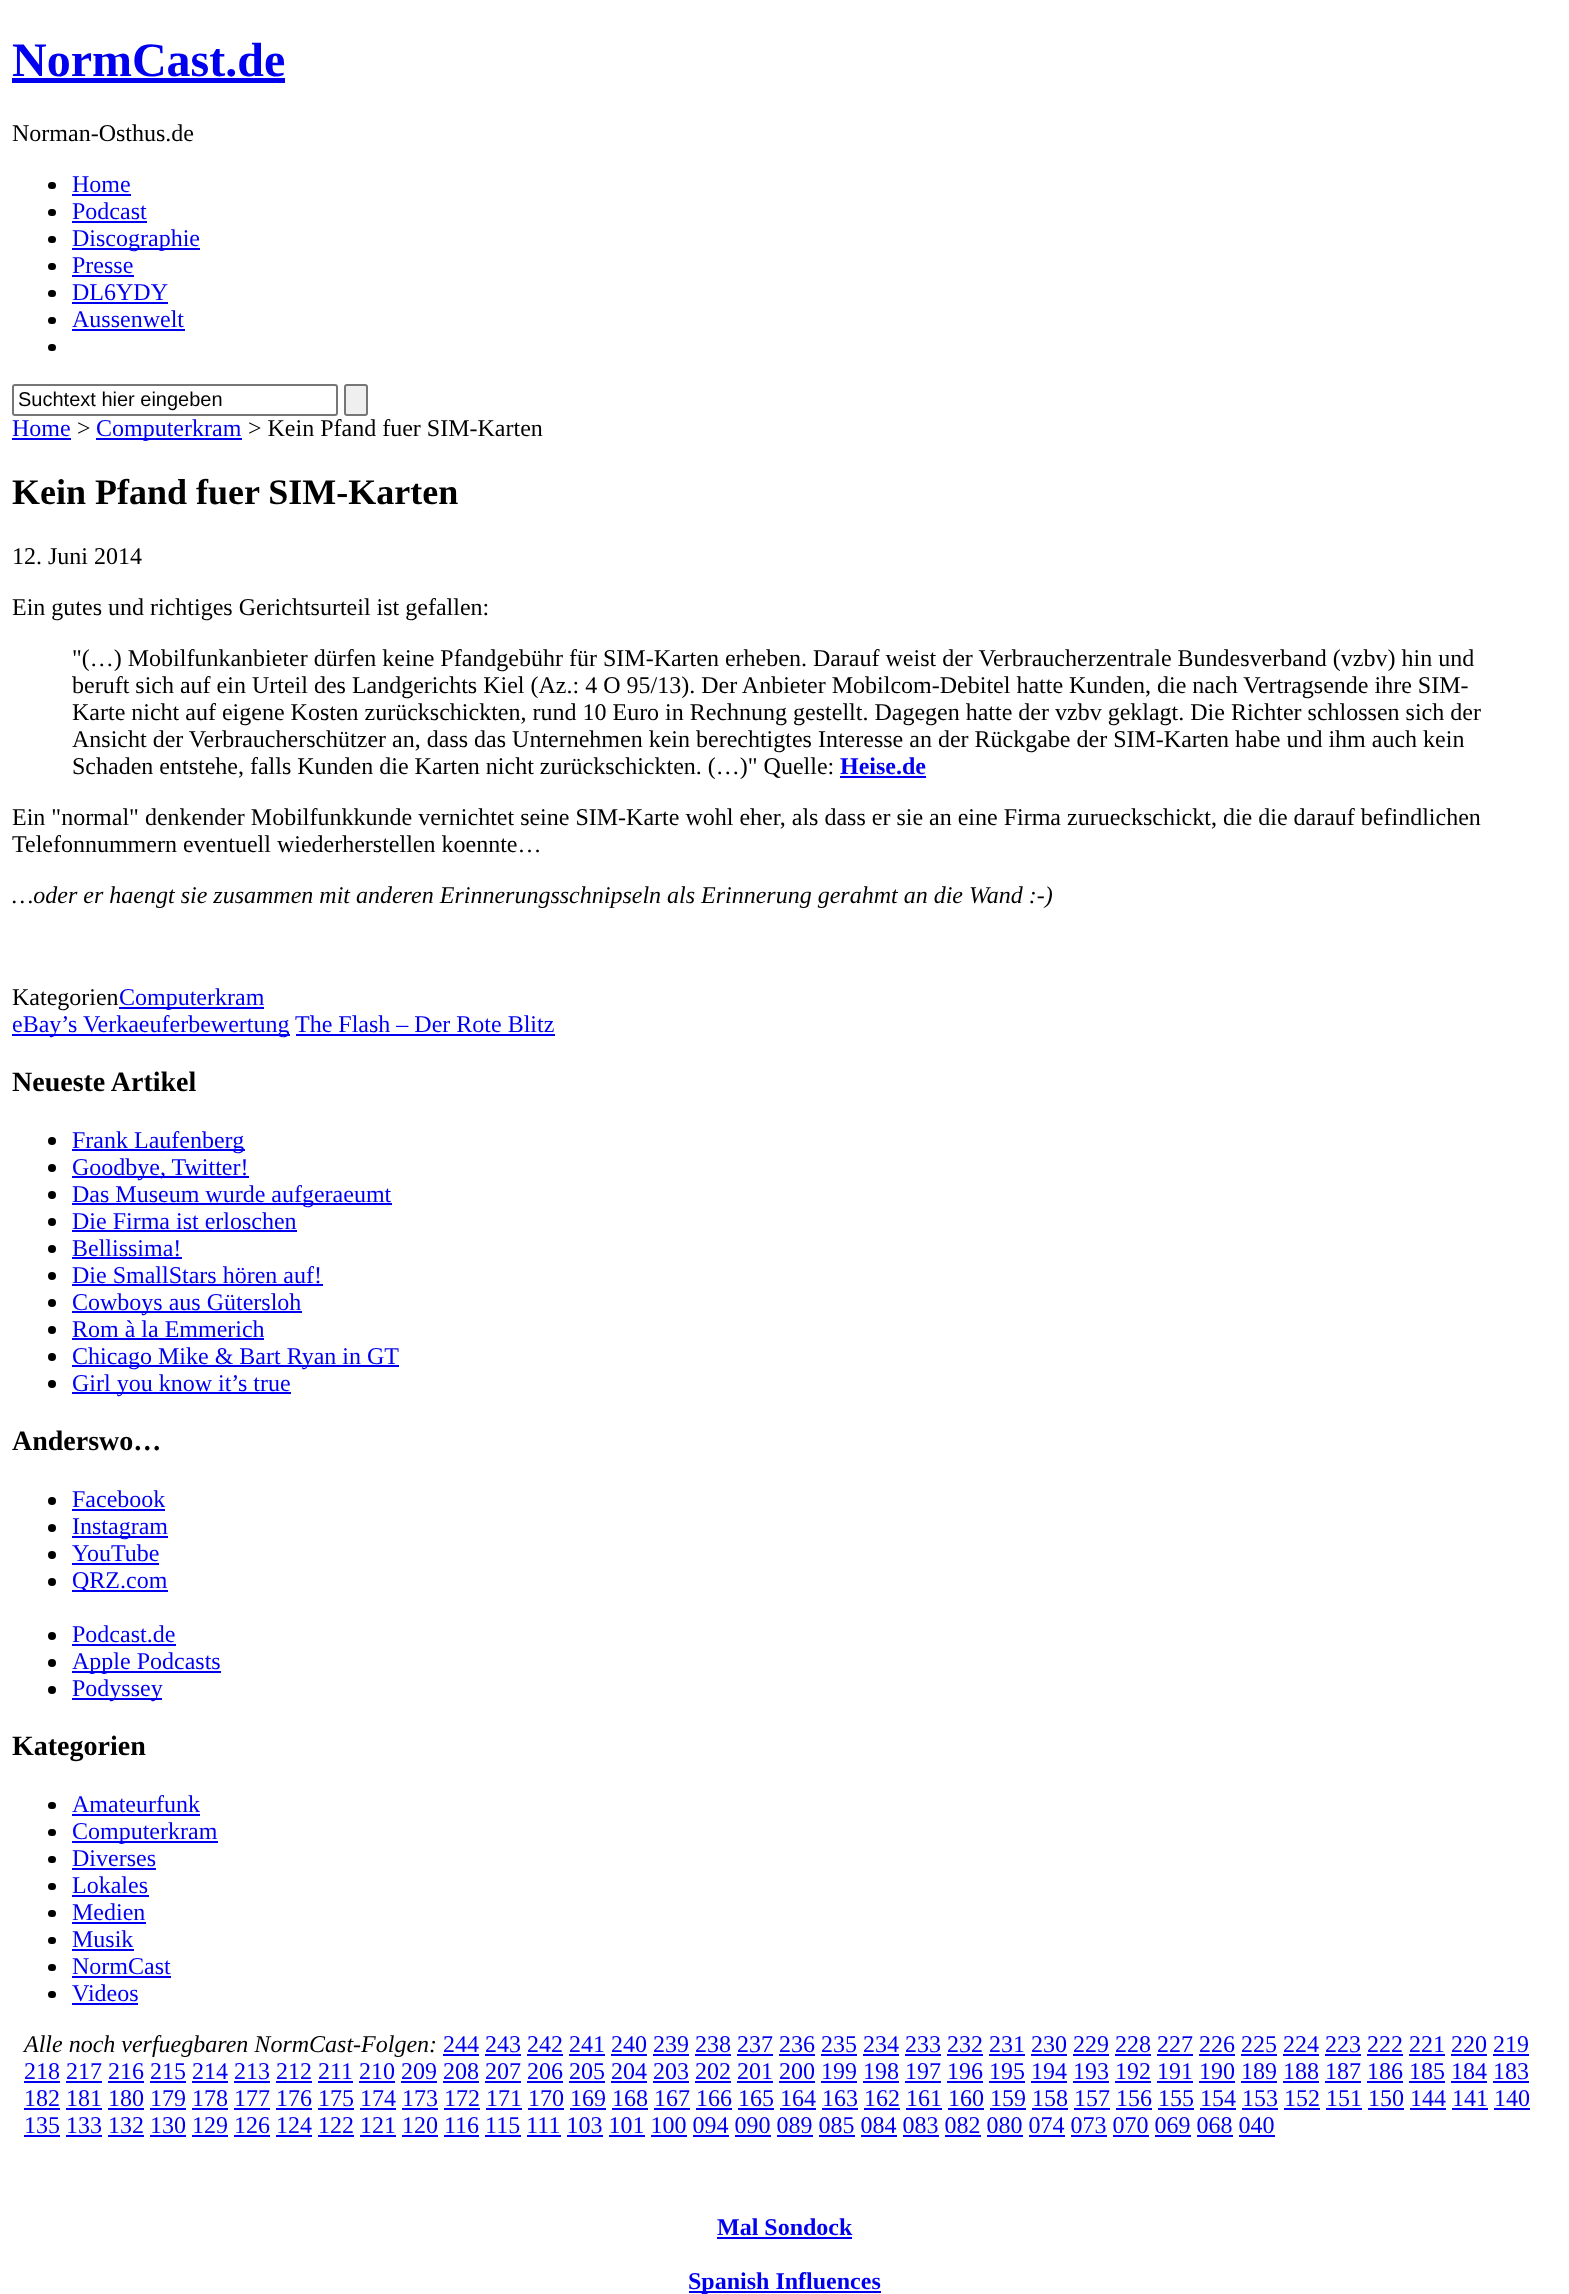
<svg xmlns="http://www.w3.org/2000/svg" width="1569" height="2294">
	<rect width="100%" height="100%" fill="#FFFFFF" />
	<text x="12" y="76" font-family="Liberation Serif" font-size="48" font-weight="700" fill="#0000EE">NormCast.de</text>
	<rect x="12" y="78" width="273" height="5" fill="#0000EE" />
	<text x="12" y="141" font-family="Liberation Serif" font-size="24" fill="#000000">Norman-Osthus.de</text>
	<rect x="48" y="182" width="8" height="7" rx="3.5" fill="#000000" />
	<text x="72" y="192" font-family="Liberation Serif" font-size="24" fill="#0000EE">Home</text>
	<rect x="72" y="194" width="59" height="2" fill="#0000EE" />
	<rect x="48" y="209" width="8" height="7" rx="3.5" fill="#000000" />
	<text x="72" y="219" font-family="Liberation Serif" font-size="24" fill="#0000EE">Podcast</text>
	<rect x="72" y="221" width="75" height="2" fill="#0000EE" />
	<rect x="48" y="236" width="8" height="7" rx="3.5" fill="#000000" />
	<rect x="72" y="248" width="128" height="2" fill="#0000EE" />
	<text x="72" y="246" font-family="Liberation Serif" font-size="24" fill="#0000EE">Discographie</text>
	<rect x="48" y="263" width="8" height="7" rx="3.5" fill="#000000" />
	<text x="72" y="273" font-family="Liberation Serif" font-size="24" fill="#0000EE">Presse</text>
	<rect x="72" y="275" width="62" height="2" fill="#0000EE" />
	<rect x="48" y="290" width="8" height="7" rx="3.5" fill="#000000" />
	<text x="72" y="300" font-family="Liberation Serif" font-size="24" fill="#0000EE">DL6YDY</text>
	<rect x="72" y="302" width="96" height="2" fill="#0000EE" />
	<rect x="48" y="317" width="8" height="7" rx="3.5" fill="#000000" />
	<text x="72" y="327" font-family="Liberation Serif" font-size="24" fill="#0000EE">Aussenwelt</text>
	<rect x="72" y="329" width="113" height="2" fill="#0000EE" />
	<rect x="48" y="344" width="8" height="7" rx="3.5" fill="#000000" />
	<rect x="13" y="385" width="324" height="30" rx="2" fill="none" stroke="#767676" stroke-width="2" />
	<text x="18" y="406" font-family="Liberation Sans" font-size="20" fill="#000000">Suchtext hier eingeben</text>
	<rect x="345" y="385" width="22" height="30" rx="2" fill="#EFEFEF" stroke="#767676" stroke-width="2" />
	<text x="12" y="436" font-family="Liberation Serif" font-size="24" fill="#0000EE">Home</text>
	<rect x="12" y="438" width="59" height="2" fill="#0000EE" />
	<text x="77" y="436" font-family="Liberation Serif" font-size="24" fill="#000000">&gt;</text>
	<rect x="96" y="438" width="146" height="2" fill="#0000EE" />
	<text x="96" y="436" font-family="Liberation Serif" font-size="24" fill="#0000EE">Computerkram</text>
	<text x="248" y="436" font-family="Liberation Serif" font-size="24" fill="#000000">&gt; Kein Pfand fuer SIM-Karten</text>
	<text x="12" y="504" font-family="Liberation Serif" font-size="36" font-weight="700" fill="#000000">Kein Pfand fuer SIM-Karten</text>
	<g font-family="Liberation Serif" font-size="24" fill="#000000">
		<text x="12" y="564">12. Juni 2014</text>
		<text x="12" y="615">Ein gutes und richtiges Gerichtsurteil ist gefallen:</text>
		<text x="72" y="666">"(…) Mobilfunkanbieter dürfen keine Pfandgebühr für SIM-Karten erheben. Darauf weist der Verbraucherzentrale Bundesverband (vzbv) hin und</text>
		<text x="72" y="693">beruft sich auf ein Urteil des Landgerichts Kiel (Az.: 4 O 95/13). Der Anbieter Mobilcom-Debitel hatte Kunden, die nach Vertragsende ihre SIM-</text>
		<text x="72" y="720">Karte nicht auf eigene Kosten zurückschickten, rund 10 Euro in Rechnung gestellt. Dagegen hatte der vzbv geklagt. Die Richter schlossen sich der</text>
		<text x="72" y="747">Ansicht der Verbraucherschützer an, dass das Unternehmen kein berechtigtes Interesse an der Rückgabe der SIM-Karten habe und ihm auch kein</text>
		<text x="72" y="774">Schaden entstehe, falls Kunden die Karten nicht zurückschickten. (…)" Quelle:</text>
	</g>
	<text x="840" y="774" font-family="Liberation Serif" font-size="24" font-weight="700" fill="#0000EE">Heise.de</text>
	<rect x="840" y="776" width="86" height="2" fill="#0000EE" />
	<g font-family="Liberation Serif" font-size="24" fill="#000000">
		<text x="12" y="825">Ein "normal" denkender Mobilfunkkunde vernichtet seine SIM-Karte wohl eher, als dass er sie an eine Firma zurueckschickt, die die darauf befindlichen</text>
		<text x="12" y="852">Telefonnummern eventuell wiederherstellen koennte…</text>
	</g>
	<text x="12" y="903" font-family="Liberation Serif" font-size="24" font-style="italic" fill="#000000">…oder er haengt sie zusammen mit anderen Erinnerungsschnipseln als Erinnerung gerahmt an die Wand :-)</text>
	<text x="12" y="1005" font-family="Liberation Serif" font-size="24" fill="#000000">Kategorien</text>
	<rect x="119" y="1007" width="145" height="2" fill="#0000EE" />
	<text x="119" y="1005" font-family="Liberation Serif" font-size="24" fill="#0000EE">Computerkram</text>
	<rect x="12" y="1034" width="278" height="2" fill="#0000EE" />
	<g font-family="Liberation Serif" font-size="24" fill="#0000EE">
		<text x="12" y="1032">eBay’s Verkaeuferbewertung</text>
		<text x="295" y="1032">The Flash – Der Rote Blitz</text>
	</g>
	<rect x="296" y="1034" width="259" height="2" fill="#0000EE" />
	<text x="12" y="1091" font-family="Liberation Serif" font-size="28" font-weight="700" fill="#000000">Neueste Artikel</text>
	<circle cx="52" cy="1141" r="4" fill="#000000" />
	<rect x="72" y="1149" width="173" height="2" fill="#0000EE" />
	<text x="72" y="1148" font-family="Liberation Serif" font-size="24" fill="#0000EE">Frank Laufenberg</text>
	<circle cx="52" cy="1168" r="4" fill="#000000" />
	<rect x="72" y="1176" width="177" height="2" fill="#0000EE" />
	<text x="72" y="1175" font-family="Liberation Serif" font-size="24" fill="#0000EE">Goodbye, Twitter!</text>
	<circle cx="52" cy="1195" r="4" fill="#000000" />
	<rect x="72" y="1203" width="320" height="2" fill="#0000EE" />
	<text x="72" y="1202" font-family="Liberation Serif" font-size="24" fill="#0000EE">Das Museum wurde aufgeraeumt</text>
	<circle cx="52" cy="1222" r="4" fill="#000000" />
	<text x="72" y="1229" font-family="Liberation Serif" font-size="24" fill="#0000EE">Die Firma ist erloschen</text>
	<rect x="72" y="1230" width="225" height="2" fill="#0000EE" />
	<circle cx="52" cy="1249" r="4" fill="#000000" />
	<text x="72" y="1256" font-family="Liberation Serif" font-size="24" fill="#0000EE">Bellissima!</text>
	<rect x="72" y="1257" width="110" height="2" fill="#0000EE" />
	<circle cx="52" cy="1276" r="4" fill="#000000" />
	<text x="72" y="1283" font-family="Liberation Serif" font-size="24" fill="#0000EE">Die SmallStars hören auf!</text>
	<rect x="72" y="1284" width="251" height="2" fill="#0000EE" />
	<circle cx="52" cy="1303" r="4" fill="#000000" />
	<rect x="72" y="1311" width="230" height="2" fill="#0000EE" />
	<text x="72" y="1310" font-family="Liberation Serif" font-size="24" fill="#0000EE">Cowboys aus Gütersloh</text>
	<circle cx="52" cy="1330" r="4" fill="#000000" />
	<text x="72" y="1337" font-family="Liberation Serif" font-size="24" fill="#0000EE">Rom à la Emmerich</text>
	<rect x="72" y="1338" width="192" height="2" fill="#0000EE" />
	<circle cx="52" cy="1357" r="4" fill="#000000" />
	<rect x="72" y="1365" width="327" height="2" fill="#0000EE" />
	<text x="72" y="1364" font-family="Liberation Serif" font-size="24" fill="#0000EE">Chicago Mike &amp; Bart Ryan in GT</text>
	<circle cx="52" cy="1384" r="4" fill="#000000" />
	<rect x="72" y="1392" width="219" height="2" fill="#0000EE" />
	<text x="72" y="1391" font-family="Liberation Serif" font-size="24" fill="#0000EE">Girl you know it’s true</text>
	<text x="12" y="1450" font-family="Liberation Serif" font-size="28" font-weight="700" fill="#000000">Anderswo…</text>
	<circle cx="52" cy="1501" r="4" fill="#000000" />
	<text x="72" y="1507" font-family="Liberation Serif" font-size="24" fill="#0000EE">Facebook</text>
	<rect x="72" y="1509" width="93" height="2" fill="#0000EE" />
	<circle cx="52" cy="1528" r="4" fill="#000000" />
	<rect x="72" y="1536" width="96" height="2" fill="#0000EE" />
	<text x="72" y="1534" font-family="Liberation Serif" font-size="24" fill="#0000EE">Instagram</text>
	<circle cx="52" cy="1555" r="4" fill="#000000" />
	<text x="72" y="1561" font-family="Liberation Serif" font-size="24" fill="#0000EE">YouTube</text>
	<rect x="72" y="1563" width="87" height="2" fill="#0000EE" />
	<circle cx="52" cy="1582" r="4" fill="#000000" />
	<rect x="72" y="1590" width="96" height="2" fill="#0000EE" />
	<text x="72" y="1588" font-family="Liberation Serif" font-size="24" fill="#0000EE">QRZ.com</text>
	<circle cx="52" cy="1636" r="4" fill="#000000" />
	<text x="72" y="1642" font-family="Liberation Serif" font-size="24" fill="#0000EE">Podcast.de</text>
	<rect x="72" y="1644" width="104" height="2" fill="#0000EE" />
	<circle cx="52" cy="1663" r="4" fill="#000000" />
	<rect x="72" y="1671" width="149" height="2" fill="#0000EE" />
	<text x="72" y="1669" font-family="Liberation Serif" font-size="24" fill="#0000EE">Apple Podcasts</text>
	<circle cx="52" cy="1690" r="4" fill="#000000" />
	<rect x="72" y="1698" width="90" height="2" fill="#0000EE" />
	<text x="72" y="1696" font-family="Liberation Serif" font-size="24" fill="#0000EE">Podyssey</text>
	<text x="12" y="1755" font-family="Liberation Serif" font-size="28" font-weight="700" fill="#000000">Kategorien</text>
	<rect x="48" y="1802" width="8" height="7" rx="3.5" fill="#000000" />
	<text x="72" y="1812" font-family="Liberation Serif" font-size="24" fill="#0000EE">Amateurfunk</text>
	<rect x="72" y="1814" width="128" height="2" fill="#0000EE" />
	<rect x="48" y="1829" width="8" height="7" rx="3.5" fill="#000000" />
	<rect x="72" y="1841" width="146" height="2" fill="#0000EE" />
	<text x="72" y="1839" font-family="Liberation Serif" font-size="24" fill="#0000EE">Computerkram</text>
	<rect x="48" y="1856" width="8" height="7" rx="3.5" fill="#000000" />
	<text x="72" y="1866" font-family="Liberation Serif" font-size="24" fill="#0000EE">Diverses</text>
	<rect x="72" y="1868" width="84" height="2" fill="#0000EE" />
	<rect x="48" y="1883" width="8" height="7" rx="3.5" fill="#000000" />
	<text x="72" y="1893" font-family="Liberation Serif" font-size="24" fill="#0000EE">Lokales</text>
	<rect x="72" y="1895" width="77" height="2" fill="#0000EE" />
	<rect x="48" y="1910" width="8" height="7" rx="3.5" fill="#000000" />
	<text x="72" y="1920" font-family="Liberation Serif" font-size="24" fill="#0000EE">Medien</text>
	<rect x="72" y="1922" width="74" height="2" fill="#0000EE" />
	<rect x="48" y="1937" width="8" height="7" rx="3.5" fill="#000000" />
	<text x="72" y="1947" font-family="Liberation Serif" font-size="24" fill="#0000EE">Musik</text>
	<rect x="72" y="1949" width="62" height="2" fill="#0000EE" />
	<rect x="48" y="1964" width="8" height="7" rx="3.5" fill="#000000" />
	<text x="72" y="1974" font-family="Liberation Serif" font-size="24" fill="#0000EE">NormCast</text>
	<rect x="72" y="1976" width="99" height="2" fill="#0000EE" />
	<rect x="48" y="1991" width="8" height="7" rx="3.5" fill="#000000" />
	<text x="72" y="2001" font-family="Liberation Serif" font-size="24" fill="#0000EE">Videos</text>
	<rect x="72" y="2003" width="66" height="2" fill="#0000EE" />
	<text x="24" y="2052" font-family="Liberation Serif" font-size="24" font-style="italic" fill="#000000">Alle noch verfuegbaren NormCast-Folgen:</text>
	<text x="443" y="2052" font-family="Liberation Serif" font-size="24" fill="#0000EE">244 243 242 241 240 239 238 237 236 235 234 233 232 231 230 229 228 227 226 225 224 223 222 221 220 219</text>
	<rect x="443" y="2054" width="36" height="2" fill="#0000EE" />
	<rect x="485" y="2054" width="36" height="2" fill="#0000EE" />
	<rect x="527" y="2054" width="36" height="2" fill="#0000EE" />
	<rect x="569" y="2054" width="36" height="2" fill="#0000EE" />
	<rect x="611" y="2054" width="36" height="2" fill="#0000EE" />
	<rect x="653" y="2054" width="36" height="2" fill="#0000EE" />
	<rect x="695" y="2054" width="36" height="2" fill="#0000EE" />
	<rect x="737" y="2054" width="36" height="2" fill="#0000EE" />
	<rect x="779" y="2054" width="36" height="2" fill="#0000EE" />
	<rect x="821" y="2054" width="36" height="2" fill="#0000EE" />
	<rect x="863" y="2054" width="36" height="2" fill="#0000EE" />
	<rect x="905" y="2054" width="36" height="2" fill="#0000EE" />
	<rect x="947" y="2054" width="36" height="2" fill="#0000EE" />
	<rect x="989" y="2054" width="36" height="2" fill="#0000EE" />
	<rect x="1031" y="2054" width="36" height="2" fill="#0000EE" />
	<rect x="1073" y="2054" width="36" height="2" fill="#0000EE" />
	<rect x="1115" y="2054" width="36" height="2" fill="#0000EE" />
	<rect x="1157" y="2054" width="36" height="2" fill="#0000EE" />
	<rect x="1199" y="2054" width="36" height="2" fill="#0000EE" />
	<rect x="1241" y="2054" width="36" height="2" fill="#0000EE" />
	<rect x="1283" y="2054" width="36" height="2" fill="#0000EE" />
	<rect x="1325" y="2054" width="36" height="2" fill="#0000EE" />
	<rect x="1367" y="2054" width="36" height="2" fill="#0000EE" />
	<rect x="1409" y="2054" width="36" height="2" fill="#0000EE" />
	<rect x="1451" y="2054" width="36" height="2" fill="#0000EE" />
	<rect x="1493" y="2054" width="36" height="2" fill="#0000EE" />
	<text x="24" y="2079" font-family="Liberation Serif" font-size="24" fill="#0000EE">218 217 216 215 214 213 212 211 210 209 208 207 206 205 204 203 202 201 200 199 198 197 196 195 194 193 192 191 190 189 188 187 186 185 184 183</text>
	<rect x="24" y="2081" width="36" height="2" fill="#0000EE" />
	<rect x="66" y="2081" width="36" height="2" fill="#0000EE" />
	<rect x="108" y="2081" width="36" height="2" fill="#0000EE" />
	<rect x="150" y="2081" width="36" height="2" fill="#0000EE" />
	<rect x="192" y="2081" width="36" height="2" fill="#0000EE" />
	<rect x="234" y="2081" width="36" height="2" fill="#0000EE" />
	<rect x="276" y="2081" width="36" height="2" fill="#0000EE" />
	<rect x="318" y="2081" width="35" height="2" fill="#0000EE" />
	<rect x="359" y="2081" width="36" height="2" fill="#0000EE" />
	<rect x="401" y="2081" width="36" height="2" fill="#0000EE" />
	<rect x="443" y="2081" width="36" height="2" fill="#0000EE" />
	<rect x="485" y="2081" width="36" height="2" fill="#0000EE" />
	<rect x="527" y="2081" width="36" height="2" fill="#0000EE" />
	<rect x="569" y="2081" width="36" height="2" fill="#0000EE" />
	<rect x="611" y="2081" width="36" height="2" fill="#0000EE" />
	<rect x="653" y="2081" width="36" height="2" fill="#0000EE" />
	<rect x="695" y="2081" width="36" height="2" fill="#0000EE" />
	<rect x="737" y="2081" width="36" height="2" fill="#0000EE" />
	<rect x="779" y="2081" width="36" height="2" fill="#0000EE" />
	<rect x="821" y="2081" width="36" height="2" fill="#0000EE" />
	<rect x="863" y="2081" width="36" height="2" fill="#0000EE" />
	<rect x="905" y="2081" width="36" height="2" fill="#0000EE" />
	<rect x="947" y="2081" width="36" height="2" fill="#0000EE" />
	<rect x="989" y="2081" width="36" height="2" fill="#0000EE" />
	<rect x="1031" y="2081" width="36" height="2" fill="#0000EE" />
	<rect x="1073" y="2081" width="36" height="2" fill="#0000EE" />
	<rect x="1115" y="2081" width="36" height="2" fill="#0000EE" />
	<rect x="1157" y="2081" width="36" height="2" fill="#0000EE" />
	<rect x="1199" y="2081" width="36" height="2" fill="#0000EE" />
	<rect x="1241" y="2081" width="36" height="2" fill="#0000EE" />
	<rect x="1283" y="2081" width="36" height="2" fill="#0000EE" />
	<rect x="1325" y="2081" width="36" height="2" fill="#0000EE" />
	<rect x="1367" y="2081" width="36" height="2" fill="#0000EE" />
	<rect x="1409" y="2081" width="36" height="2" fill="#0000EE" />
	<rect x="1451" y="2081" width="36" height="2" fill="#0000EE" />
	<rect x="1493" y="2081" width="36" height="2" fill="#0000EE" />
	<text x="24" y="2106" font-family="Liberation Serif" font-size="24" fill="#0000EE">182 181 180 179 178 177 176 175 174 173 172 171 170 169 168 167 166 165 164 163 162 161 160 159 158 157 156 155 154 153 152 151 150 144 141 140</text>
	<rect x="24" y="2108" width="36" height="2" fill="#0000EE" />
	<rect x="66" y="2108" width="36" height="2" fill="#0000EE" />
	<rect x="108" y="2108" width="36" height="2" fill="#0000EE" />
	<rect x="150" y="2108" width="36" height="2" fill="#0000EE" />
	<rect x="192" y="2108" width="36" height="2" fill="#0000EE" />
	<rect x="234" y="2108" width="36" height="2" fill="#0000EE" />
	<rect x="276" y="2108" width="36" height="2" fill="#0000EE" />
	<rect x="318" y="2108" width="36" height="2" fill="#0000EE" />
	<rect x="360" y="2108" width="36" height="2" fill="#0000EE" />
	<rect x="402" y="2108" width="36" height="2" fill="#0000EE" />
	<rect x="444" y="2108" width="36" height="2" fill="#0000EE" />
	<rect x="486" y="2108" width="36" height="2" fill="#0000EE" />
	<rect x="528" y="2108" width="36" height="2" fill="#0000EE" />
	<rect x="570" y="2108" width="36" height="2" fill="#0000EE" />
	<rect x="612" y="2108" width="36" height="2" fill="#0000EE" />
	<rect x="654" y="2108" width="36" height="2" fill="#0000EE" />
	<rect x="696" y="2108" width="36" height="2" fill="#0000EE" />
	<rect x="738" y="2108" width="36" height="2" fill="#0000EE" />
	<rect x="780" y="2108" width="36" height="2" fill="#0000EE" />
	<rect x="822" y="2108" width="36" height="2" fill="#0000EE" />
	<rect x="864" y="2108" width="36" height="2" fill="#0000EE" />
	<rect x="906" y="2108" width="36" height="2" fill="#0000EE" />
	<rect x="948" y="2108" width="36" height="2" fill="#0000EE" />
	<rect x="990" y="2108" width="36" height="2" fill="#0000EE" />
	<rect x="1032" y="2108" width="36" height="2" fill="#0000EE" />
	<rect x="1074" y="2108" width="36" height="2" fill="#0000EE" />
	<rect x="1116" y="2108" width="36" height="2" fill="#0000EE" />
	<rect x="1158" y="2108" width="36" height="2" fill="#0000EE" />
	<rect x="1200" y="2108" width="36" height="2" fill="#0000EE" />
	<rect x="1242" y="2108" width="36" height="2" fill="#0000EE" />
	<rect x="1284" y="2108" width="36" height="2" fill="#0000EE" />
	<rect x="1326" y="2108" width="36" height="2" fill="#0000EE" />
	<rect x="1368" y="2108" width="36" height="2" fill="#0000EE" />
	<rect x="1410" y="2108" width="36" height="2" fill="#0000EE" />
	<rect x="1452" y="2108" width="36" height="2" fill="#0000EE" />
	<rect x="1494" y="2108" width="36" height="2" fill="#0000EE" />
	<text x="24" y="2133" font-family="Liberation Serif" font-size="24" fill="#0000EE">135 133 132 130 129 126 124 122 121 120 116 115 111 103 101 100 094 090 089 085 084 083 082 080 074 073 070 069 068 040</text>
	<rect x="24" y="2135" width="36" height="2" fill="#0000EE" />
	<rect x="66" y="2135" width="36" height="2" fill="#0000EE" />
	<rect x="108" y="2135" width="36" height="2" fill="#0000EE" />
	<rect x="150" y="2135" width="36" height="2" fill="#0000EE" />
	<rect x="192" y="2135" width="36" height="2" fill="#0000EE" />
	<rect x="234" y="2135" width="36" height="2" fill="#0000EE" />
	<rect x="276" y="2135" width="36" height="2" fill="#0000EE" />
	<rect x="318" y="2135" width="36" height="2" fill="#0000EE" />
	<rect x="360" y="2135" width="36" height="2" fill="#0000EE" />
	<rect x="402" y="2135" width="36" height="2" fill="#0000EE" />
	<rect x="444" y="2135" width="35" height="2" fill="#0000EE" />
	<rect x="485" y="2135" width="36" height="2" fill="#0000EE" />
	<rect x="527" y="2135" width="34" height="2" fill="#0000EE" />
	<rect x="567" y="2135" width="36" height="2" fill="#0000EE" />
	<rect x="609" y="2135" width="36" height="2" fill="#0000EE" />
	<rect x="651" y="2135" width="36" height="2" fill="#0000EE" />
	<rect x="693" y="2135" width="36" height="2" fill="#0000EE" />
	<rect x="735" y="2135" width="36" height="2" fill="#0000EE" />
	<rect x="777" y="2135" width="36" height="2" fill="#0000EE" />
	<rect x="819" y="2135" width="36" height="2" fill="#0000EE" />
	<rect x="861" y="2135" width="36" height="2" fill="#0000EE" />
	<rect x="903" y="2135" width="36" height="2" fill="#0000EE" />
	<rect x="945" y="2135" width="36" height="2" fill="#0000EE" />
	<rect x="987" y="2135" width="36" height="2" fill="#0000EE" />
	<rect x="1029" y="2135" width="36" height="2" fill="#0000EE" />
	<rect x="1071" y="2135" width="36" height="2" fill="#0000EE" />
	<rect x="1113" y="2135" width="36" height="2" fill="#0000EE" />
	<rect x="1155" y="2135" width="36" height="2" fill="#0000EE" />
	<rect x="1197" y="2135" width="36" height="2" fill="#0000EE" />
	<rect x="1239" y="2135" width="36" height="2" fill="#0000EE" />
	<text x="717" y="2235" font-family="Liberation Serif" font-size="24" font-weight="700" fill="#0000EE">Mal Sondock</text>
	<rect x="717" y="2237" width="135" height="2" fill="#0000EE" />
	<rect x="689" y="2291" width="192" height="2" fill="#0000EE" />
	<text x="688" y="2289" font-family="Liberation Serif" font-size="24" font-weight="700" fill="#0000EE">Spanish Influences</text>
</svg>
